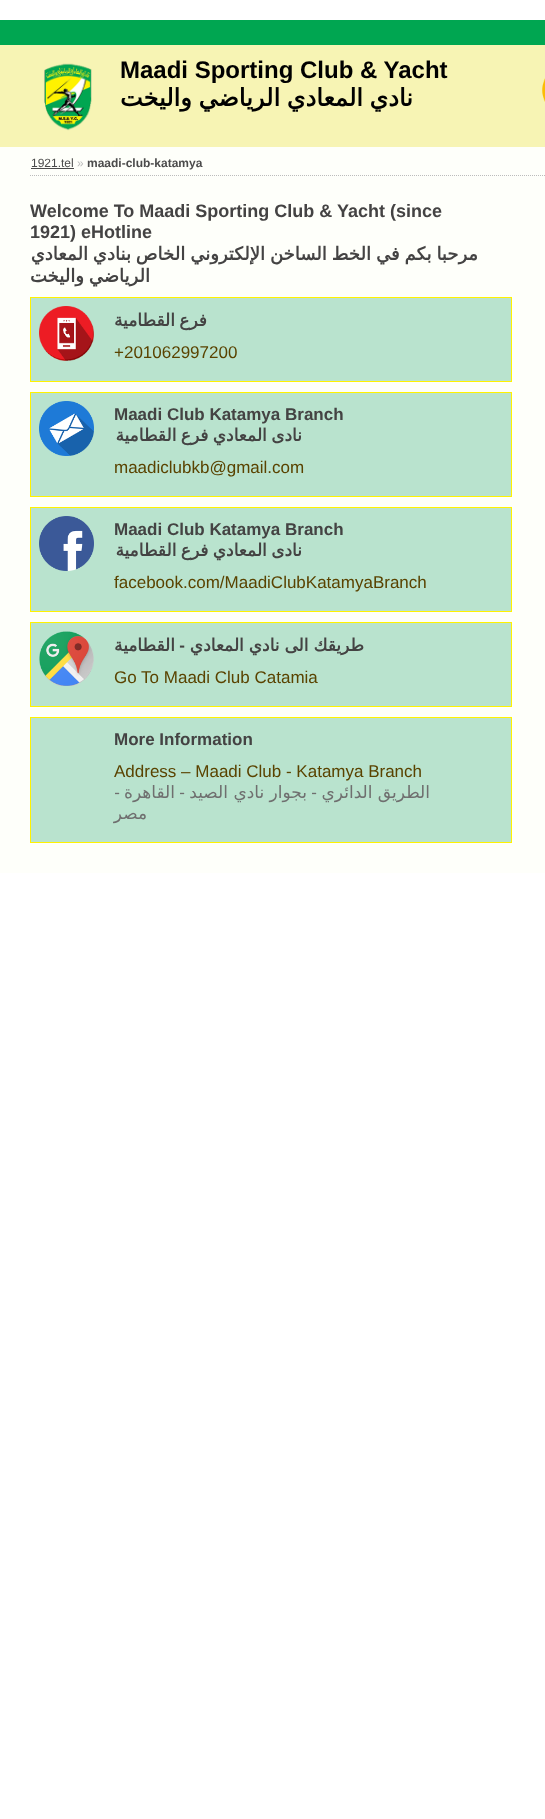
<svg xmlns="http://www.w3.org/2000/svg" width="545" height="1819">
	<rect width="100%" height="100%" fill="#FFFFFF" />
	<rect x="0" y="147" width="545" height="726" fill="#FEFFFA" />
	<rect x="0" y="20" width="545" height="25" fill="#00A651" />
	<rect x="0" y="45" width="545" height="102" fill="#F7F4B4" />
	<image x="44" y="63" width="48" height="68" href="assets/img1.png" />
	<text x="120" y="78" font-family="Liberation Sans" font-size="24" font-weight="700" fill="#000000">Maadi Sporting Club &amp; Yacht</text>
	<text x="413" y="106" word-spacing="-1" font-family="DejaVu Sans" font-size="24" font-weight="700" direction="rtl" fill="#000000">نادي المعادي الرياضي واليخت</text>
	<image x="542" y="78" width="3" height="24" href="assets/img2.png" />
	<path d="M30 175.5H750" fill="none" stroke="#BCBCBC" stroke-dasharray="1 1" />
	<text x="31" y="167" font-family="Liberation Sans" font-size="12" fill="#4B4B4B">1921.tel</text>
	<rect x="31" y="168" width="43" height="1" fill="#4B4B4B" />
	<text x="77" y="167" font-family="Liberation Sans" font-size="12" fill="#BCBCBC">»</text>
	<text x="87" y="167" font-family="Liberation Sans" font-size="12" font-weight="700" fill="#4B4B4B">maadi-club-katamya</text>
	<g font-family="Liberation Sans" font-size="18" font-weight="700" fill="#444343">
		<text x="30" y="217">Welcome To Maadi Sporting Club &amp; Yacht (since</text>
		<text x="30" y="238">1921) eHotline</text>
	</g>
	<g font-family="DejaVu Sans" font-size="18" font-weight="700" direction="rtl" fill="#444343">
		<text x="478" y="260" word-spacing="-0.75">مرحبا بكم في الخط الساخن الإلكتروني الخاص بنادي المعادي</text>
		<text x="150" y="282" word-spacing="-0.75">الرياضي واليخت</text>
	</g>
	<rect x="30.5" y="297.5" width="481" height="84" fill="#B9E3CE" stroke="#FFF200" />
	<image x="39" y="306" width="55" height="55" href="assets/img3.png" />
	<text x="207" y="326" word-spacing="-1" font-family="DejaVu Sans" font-size="17" font-weight="700" direction="rtl" fill="#444343">فرع القطامية</text>
	<text x="114" y="358" font-family="Liberation Sans" font-size="17" fill="#5A4300">+201062997200</text>
	<rect x="30.5" y="392.5" width="481" height="104" fill="#B9E3CE" stroke="#FFF200" />
	<image x="39" y="401" width="55" height="55" href="assets/img4.png" />
	<text x="114" y="420" font-family="Liberation Sans" font-size="17" font-weight="700" fill="#444343">Maadi Club Katamya Branch</text>
	<text x="302" y="441" word-spacing="-1" font-family="DejaVu Sans" font-size="17" font-weight="700" direction="rtl" fill="#444343">نادى المعادي فرع القطامية</text>
	<text x="114" y="473" font-family="Liberation Sans" font-size="17" fill="#5A4300">maadiclubkb@gmail.com</text>
	<rect x="30.5" y="507.5" width="481" height="104" fill="#B9E3CE" stroke="#FFF200" />
	<image x="39" y="516" width="55" height="55" href="assets/img5.png" />
	<text x="114" y="535" font-family="Liberation Sans" font-size="17" font-weight="700" fill="#444343">Maadi Club Katamya Branch</text>
	<text x="302" y="556" word-spacing="-1" font-family="DejaVu Sans" font-size="17" font-weight="700" direction="rtl" fill="#444343">نادى المعادي فرع القطامية</text>
	<text x="114" y="588" font-family="Liberation Sans" font-size="17" fill="#5A4300">facebook.com/MaadiClubKatamyaBranch</text>
	<rect x="30.5" y="622.5" width="481" height="84" fill="#B9E3CE" stroke="#FFF200" />
	<image x="39" y="631" width="55" height="55" href="assets/img6.png" />
	<text x="175" y="651" font-family="DejaVu Sans" font-size="17" font-weight="700" direction="rtl" fill="#444343">القطامية</text>
	<text x="185" y="651" font-family="Liberation Sans" font-size="17" font-weight="700" direction="rtl" fill="#444343">-</text>
	<text x="364" y="651" word-spacing="-0.5" font-family="DejaVu Sans" font-size="17" font-weight="700" direction="rtl" fill="#444343">طريقك الى نادي المعادي</text>
	<text x="114" y="683" font-family="Liberation Sans" font-size="17" fill="#5A4300">Go To Maadi Club Catamia</text>
	<rect x="30.5" y="717.5" width="481" height="125" fill="#B9E3CE" stroke="#FFF200" />
	<text x="114" y="745" font-family="Liberation Sans" font-size="17" font-weight="700" fill="#444343">More Information</text>
	<text x="114" y="777" font-family="Liberation Sans" font-size="17" fill="#5A4300">Address – Maadi Club - Katamya Branch</text>
	<text x="120" y="798" font-family="Liberation Sans" font-size="17" direction="rtl" fill="#6F6F6F">-</text>
	<text x="175" y="798" font-family="DejaVu Sans" font-size="17" direction="rtl" fill="#6F6F6F">القاهرة</text>
	<text x="185" y="798" font-family="Liberation Sans" font-size="17" direction="rtl" fill="#6F6F6F">-</text>
	<text x="307" y="798" font-family="DejaVu Sans" font-size="17" direction="rtl" fill="#6F6F6F">بجوار نادي الصيد</text>
	<text x="317" y="798" font-family="Liberation Sans" font-size="17" direction="rtl" fill="#6F6F6F">-</text>
	<g font-family="DejaVu Sans" font-size="17" direction="rtl" fill="#6F6F6F">
		<text x="430" y="798">الطريق الدائري</text>
		<text x="147" y="819">مصر</text>
	</g>
</svg>
